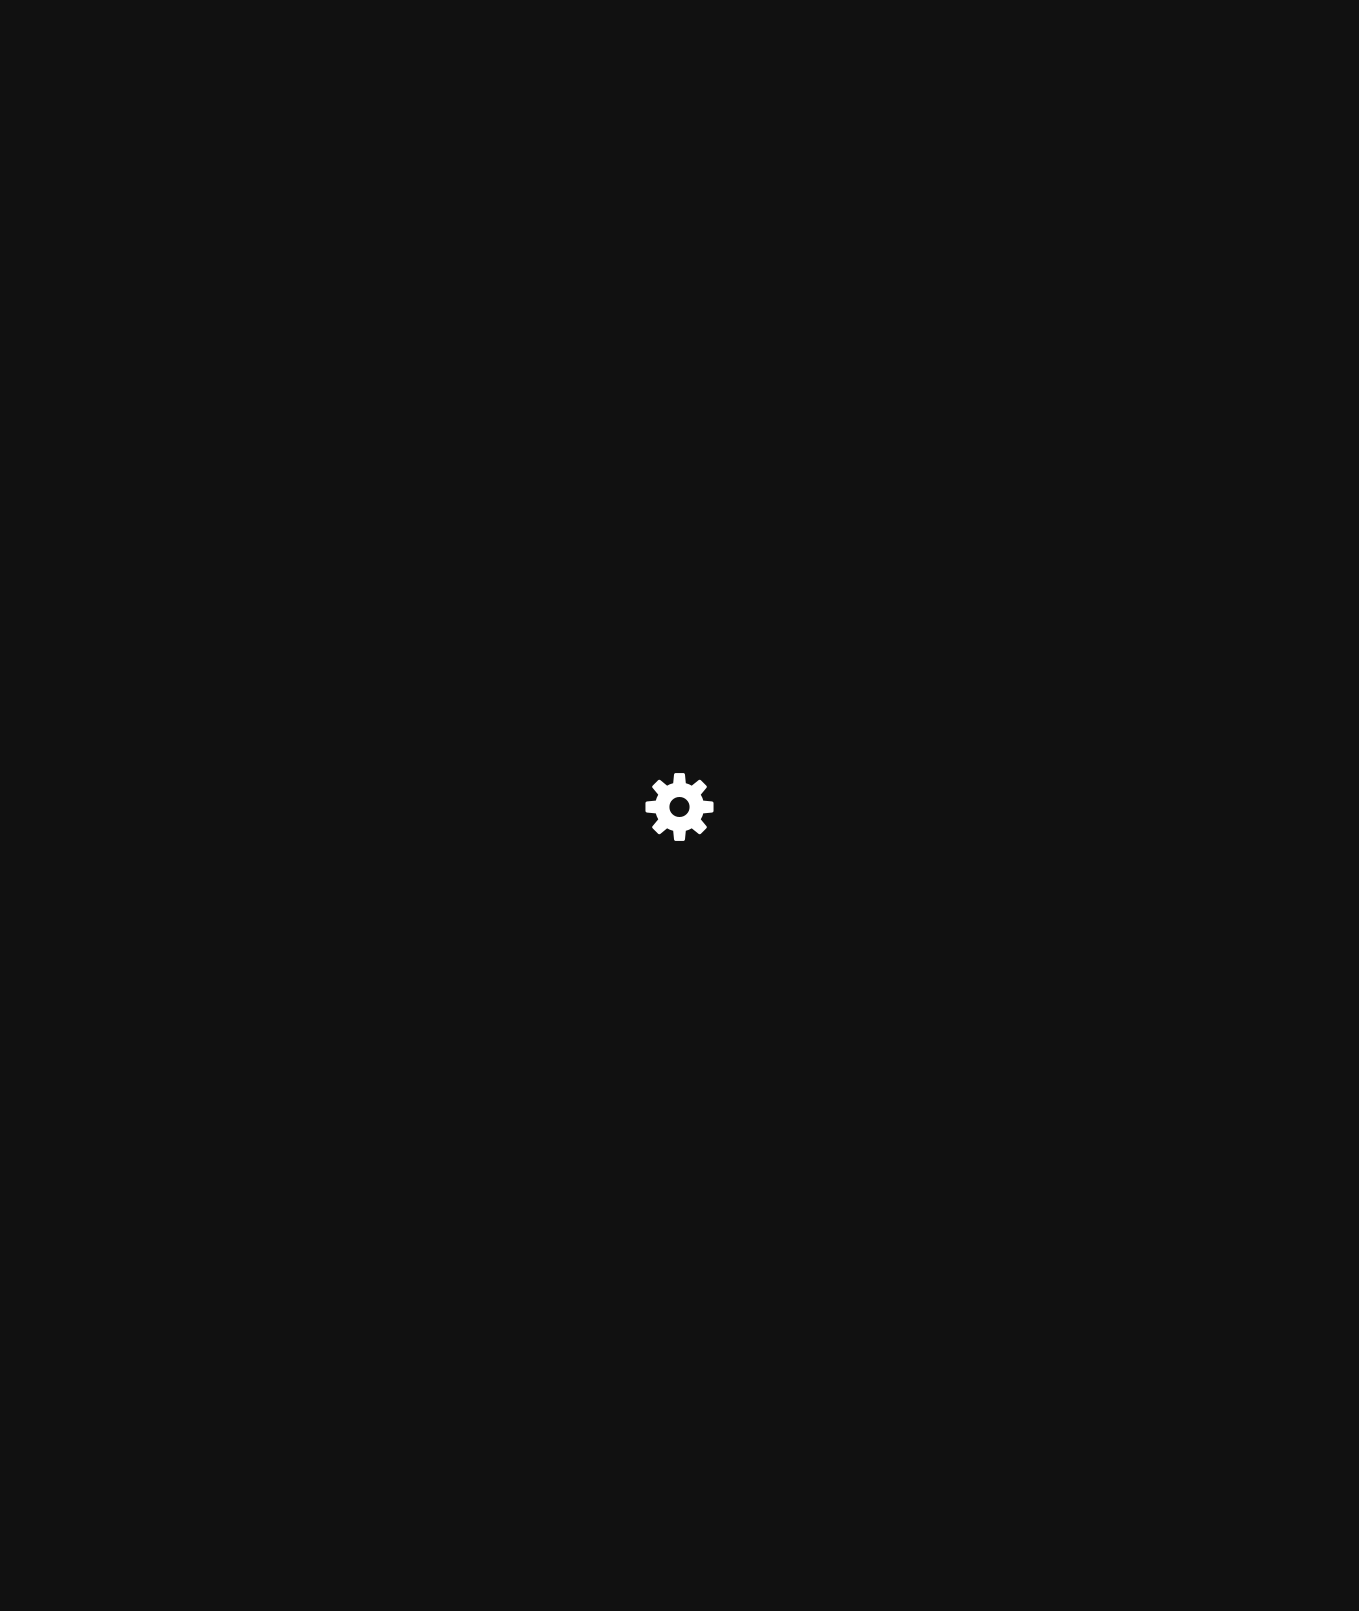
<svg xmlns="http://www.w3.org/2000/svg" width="1359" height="1611">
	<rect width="100%" height="100%" fill="#111111" />
	<image x="645" y="773" width="69" height="68" href="assets/img1.png" />
</svg>
